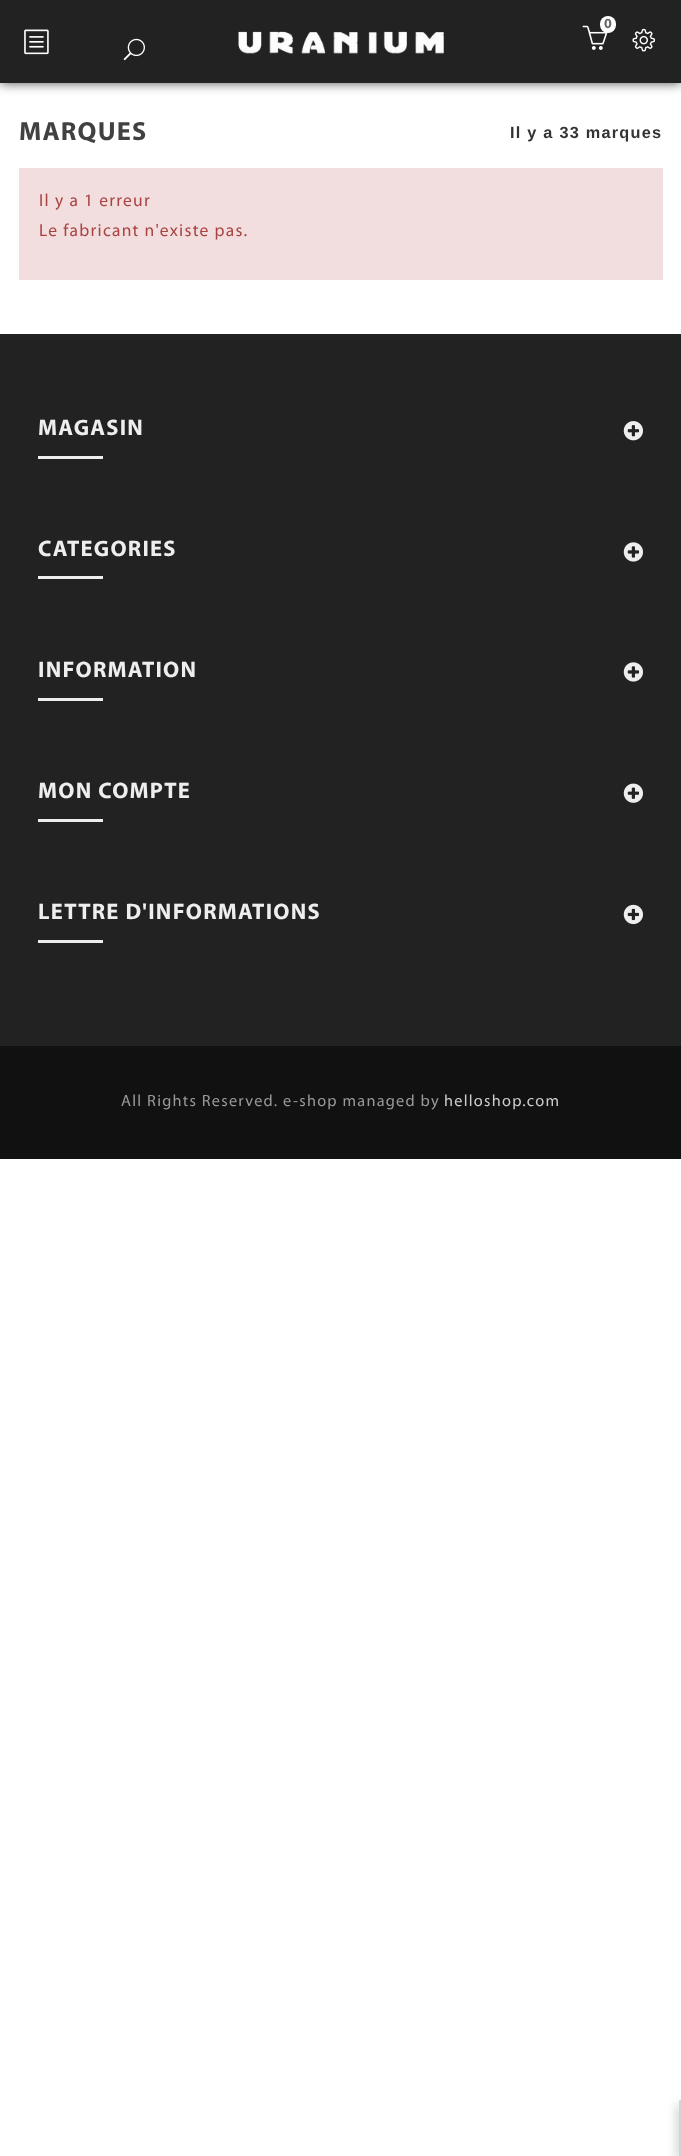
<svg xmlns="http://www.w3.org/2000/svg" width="681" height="2156">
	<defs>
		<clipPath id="clip1"><rect x="38" y="540" width="606" height="70" /></clipPath>
	</defs>
	<rect width="100%" height="100%" fill="#FFFFFF" />
	<rect x="0" y="0" width="681" height="83" fill="#000000" fill-opacity="0.7" filter="blur(6px)" />
	<rect x="0" y="0" width="681" height="83" fill="#222222" />
	<image x="582" y="25" width="26" height="25" href="assets/img1.png" />
	<rect x="600" y="16" width="16" height="17" rx="8" fill="#FFFFFF" />
	<text x="604" y="28" font-family="Myriad" font-size="14" font-weight="700" fill="#666666">0</text>
	<image x="632" y="28" width="23" height="24" href="assets/img2.png" />
	<image x="24" y="29" width="25" height="26" href="assets/img3.png" />
	<image x="123" y="38" width="22" height="23" href="assets/img4.png" />
	<image x="238" y="31" width="206" height="23" href="assets/img5.png" />
	<text x="19" y="140" font-family="Myriad" font-size="26.25" font-weight="700" letter-spacing="1.25" fill="#414141">MARQUES</text>
	<text x="510" y="138" font-family="Liberation Sans" font-size="16.25" font-weight="700" letter-spacing="1.25" fill="#333333">Il y a 33 marques</text>
	<rect x="19" y="168" width="644" height="112" fill="#F2DEDE" />
	<g font-family="Myriad" font-size="17.5" letter-spacing="1.25" fill="#A94442">
		<text x="39" y="206">Il y a 1 erreur</text>
		<text x="39" y="236">Le fabricant n'existe pas.</text>
	</g>
	<rect x="0" y="334" width="681" height="712" fill="#222222" />
	<text x="38" y="435" font-family="Myriad" font-size="22.5" font-weight="700" letter-spacing="1.25" fill="#EEEEEE">MAGASIN</text>
	<image x="623" y="421" width="20" height="20" href="assets/img6.png" />
	<rect x="38" y="456" width="65" height="3" fill="#EEEEEE" />
	<g clip-path="url(#clip1)">
		<text x="38" y="556" font-family="Myriad" font-size="22.5" font-weight="700" letter-spacing="1.25" fill="#EEEEEE">CATÉGORIES</text>
	</g>
	<image x="623" y="542" width="20" height="20" href="assets/img7.png" />
	<rect x="38" y="576" width="65" height="3" fill="#EEEEEE" />
	<text x="38" y="677" font-family="Myriad" font-size="22.5" font-weight="700" letter-spacing="1.25" fill="#EEEEEE">INFORMATION</text>
	<image x="623" y="662" width="20" height="20" href="assets/img7.png" />
	<rect x="38" y="698" width="65" height="3" fill="#EEEEEE" />
	<text x="38" y="798" font-family="Myriad" font-size="22.5" font-weight="700" letter-spacing="1.25" fill="#EEEEEE">MON COMPTE</text>
	<image x="623" y="783" width="20" height="20" href="assets/img8.png" />
	<rect x="38" y="819" width="65" height="3" fill="#EEEEEE" />
	<text x="38" y="919" font-family="Myriad" font-size="22.5" font-weight="700" letter-spacing="1.25" fill="#EEEEEE">LETTRE D'INFORMATIONS</text>
	<image x="623" y="904" width="20" height="21" href="assets/img9.png" />
	<rect x="38" y="940" width="65" height="3" fill="#EEEEEE" />
	<rect x="0" y="1046" width="681" height="113" fill="#111111" />
	<text x="121" y="1106" font-family="Myriad" font-size="16.25" letter-spacing="1.25" fill="#999999">All Rights Reserved. e-shop managed by</text>
	<text x="444" y="1106" font-family="Myriad" font-size="16.25" letter-spacing="1.25" fill="#CCCCCC">helloshop.com</text>
	<rect x="679" y="2104" width="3" height="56" rx="1.5" fill="#000000" fill-opacity="0.5" filter="blur(5.5px)" />
	<path d="M680.5 2100C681.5 2100 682 2100.5 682 2101.5V2156H679V2101.5C679 2100.5 679.5 2100 680.5 2100Z" fill="#D3D3D3" />
</svg>
